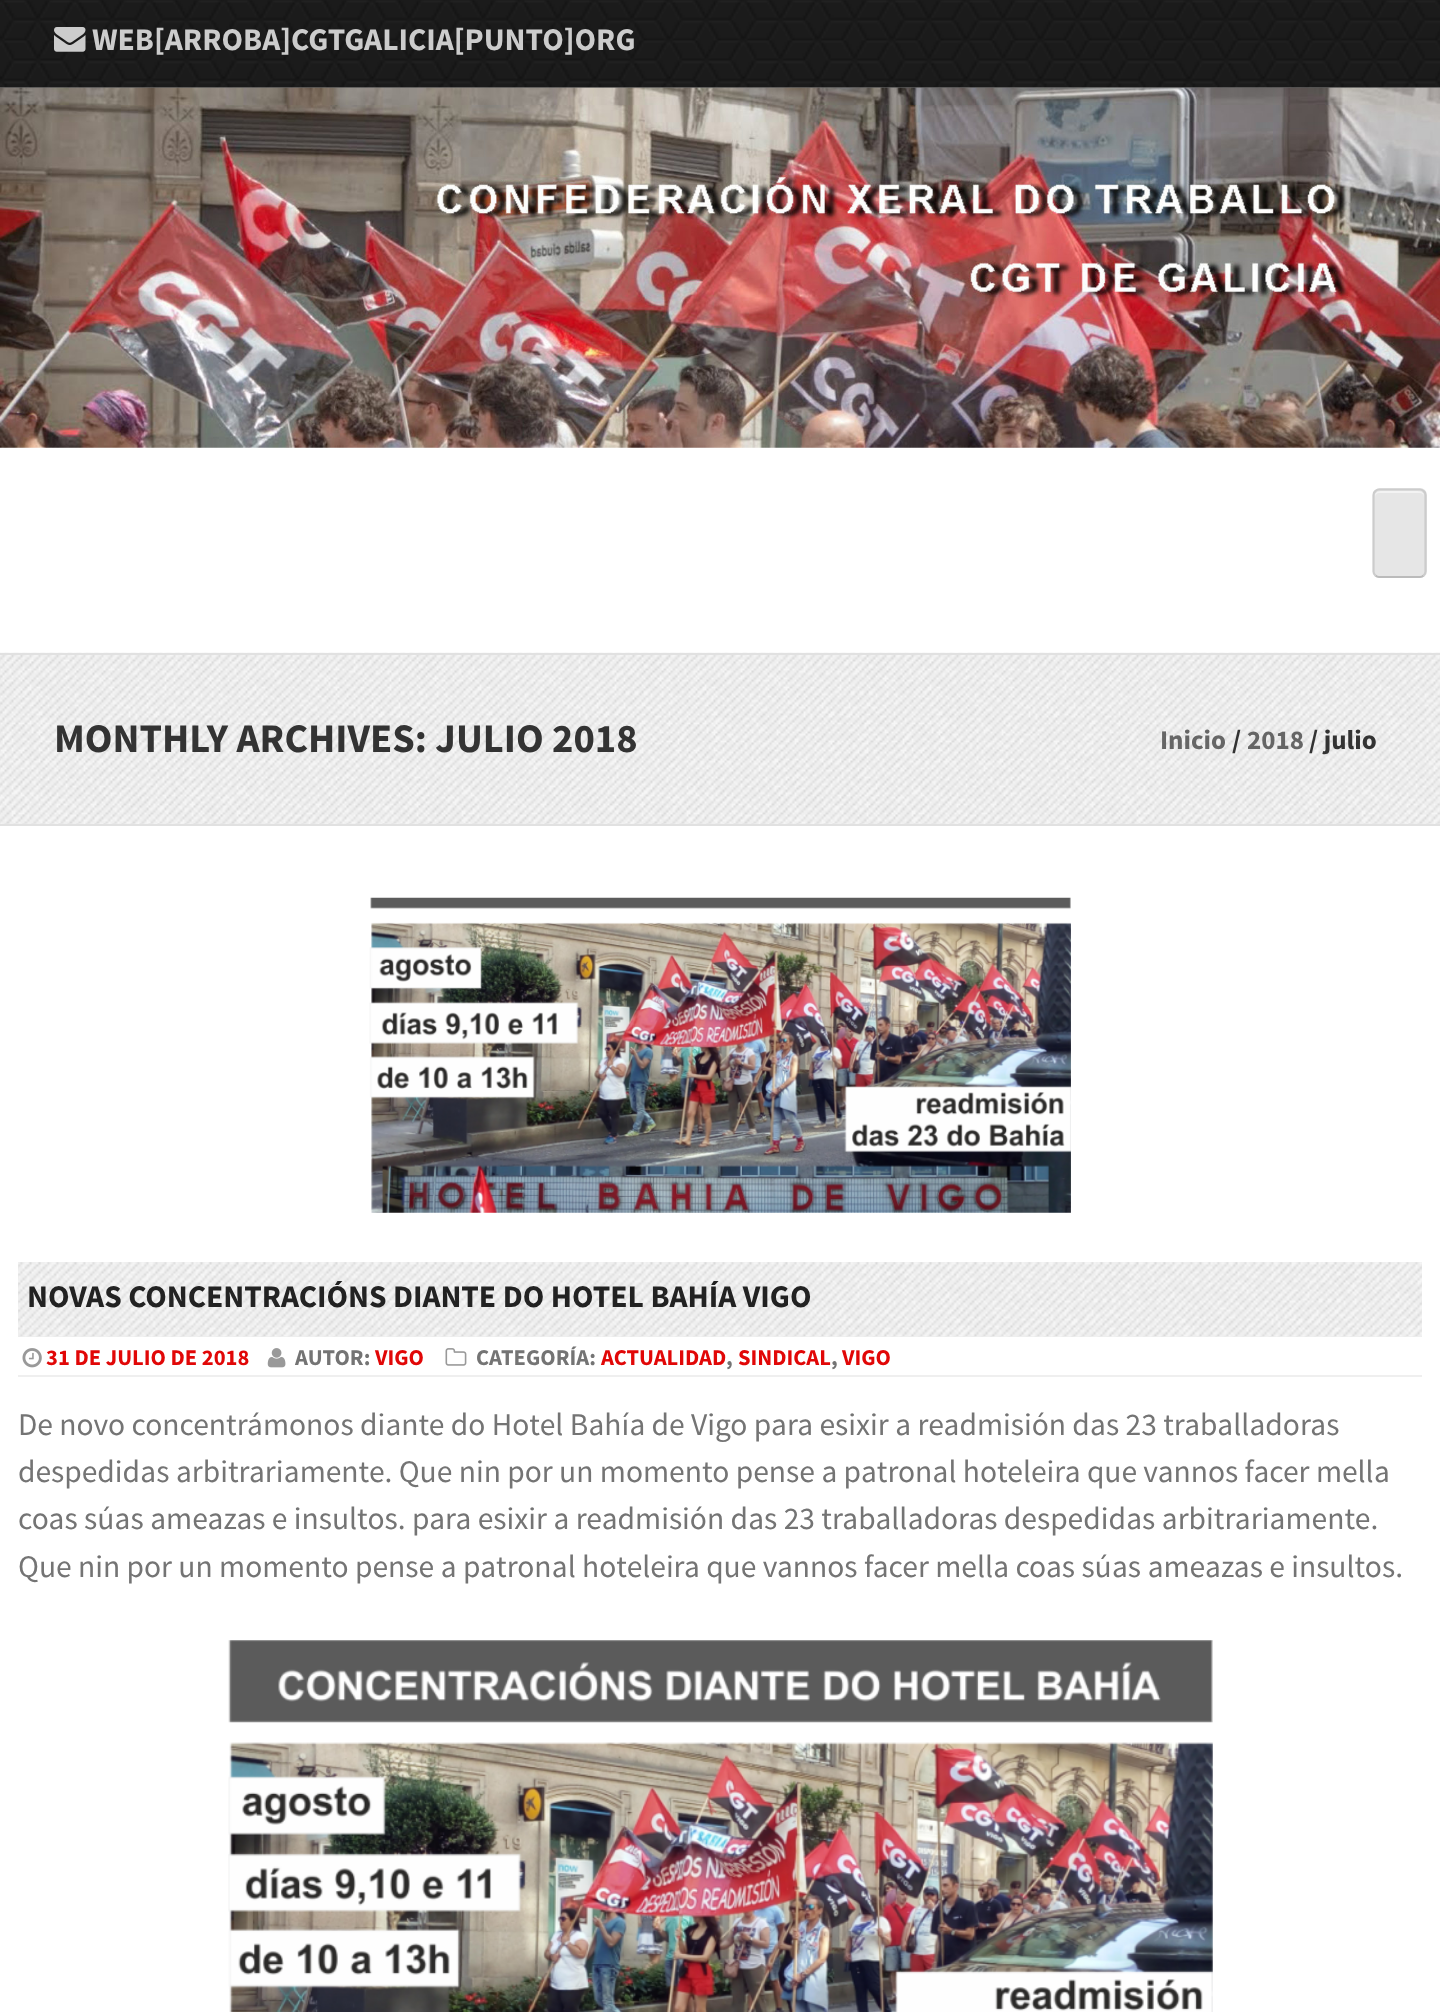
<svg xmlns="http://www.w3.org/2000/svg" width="1440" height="2012">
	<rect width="100%" height="100%" fill="#FFFFFF" />
	<image x="0" y="0" width="1440" height="88" href="assets/img1.png" />
	<image x="54" y="27" width="32" height="25" href="assets/img2.png" />
	<text x="92" y="50" font-family="Source Sans Pro" font-size="31.5" font-weight="700" fill="#CCCCCC">WEB[ARROBA]CGTGALICIA[PUNTO]ORG</text>
	<image x="0" y="87" width="1440" height="361" href="assets/img3.png" />
	<rect x="1373" y="488" width="54" height="90" rx="7" fill="#E6E6E6" />
	<path d="M1379 493H1420C1422 493 1424 495 1424 497C1424 490 1418 491 1412 491H1386C1381 491 1375 490 1375 497C1375 495 1377 493 1379 493Z" fill="#F3F3F3" />
	<path d="M1423.5 575.5C1422.5 576.5 1421 577 1420 577H1379C1378 577 1376.5 576.5 1375.5 575.5" fill="none" stroke="#BBBBBB" stroke-width="2.2" />
	<path d="M1375.5 575.5C1374 574.5 1373.5 573 1373.5 571.5V495C1373.5 493.5 1374 492 1375.5 491C1376.5 490 1378 489.5 1379 489.5H1420C1421 489.5 1422.5 490 1423.5 491C1425 492 1425.5 493.5 1425.5 495V571.5C1425.5 573 1425 574.5 1423.5 575.5" fill="none" stroke="#CCCCCC" stroke-width="2.2" />
	<image x="0" y="652" width="1440" height="172" href="assets/img4.png" />
	<rect x="0" y="653" width="1440" height="2" fill="#E1E1E1" />
	<rect x="0" y="824" width="1440" height="2" fill="#E1E1E1" />
	<text x="54" y="752" font-family="Source Sans Pro" font-size="40.5" font-weight="700" fill="#333333">MONTHLY ARCHIVES: JULIO 2018</text>
	<text x="1160" y="749" font-family="Source Sans Pro" font-size="27" font-weight="700" fill="#666666">Inicio</text>
	<text x="1232" y="749" font-family="Source Sans Pro" font-size="27" font-weight="700" fill="#333333">/</text>
	<text x="1247" y="749" font-family="Source Sans Pro" font-size="27" font-weight="700" fill="#666666">2018</text>
	<text x="1309" y="749" font-family="Source Sans Pro" font-size="27" font-weight="700" fill="#333333">/ julio</text>
	<image x="369" y="897" width="702" height="316" href="assets/img5.png" />
	<rect x="18" y="1262" width="1404" height="75" fill="#EFEFEF" />
	<image x="18" y="1262" width="1404" height="75" href="assets/img6.png" />
	<text x="27" y="1307" font-family="Source Sans Pro" font-size="31.5" font-weight="700" fill="#222222">NOVAS CONCENTRACIÓNS DIANTE DO HOTEL BAHÍA VIGO</text>
	<rect x="18" y="1375" width="1404" height="2" fill="#EFEFEF" />
	<image x="22" y="1348" width="20" height="20" href="assets/img7.png" />
	<text x="46" y="1365" font-family="Source Sans Pro" font-size="22.5" font-weight="700" fill="#E10707">31 DE JULIO DE 2018</text>
	<image x="267" y="1348" width="19" height="20" href="assets/img8.png" />
	<text x="295" y="1365" font-family="Source Sans Pro" font-size="22.5" font-weight="700" fill="#747474">AUTOR:</text>
	<text x="375" y="1365" font-family="Source Sans Pro" font-size="22.5" font-weight="700" fill="#E10707">VIGO</text>
	<image x="445" y="1348" width="22" height="18" href="assets/img9.png" />
	<text x="476" y="1365" font-family="Source Sans Pro" font-size="22.5" font-weight="700" fill="#747474">CATEGORÍA:</text>
	<text x="601" y="1365" font-family="Source Sans Pro" font-size="22.5" font-weight="700" fill="#E10707">ACTUALIDAD</text>
	<text x="726" y="1365" font-family="Source Sans Pro" font-size="22.5" font-weight="700" fill="#747474">,</text>
	<text x="738" y="1365" font-family="Source Sans Pro" font-size="22.5" font-weight="700" fill="#E10707">SINDICAL</text>
	<text x="831" y="1365" font-family="Source Sans Pro" font-size="22.5" font-weight="700" fill="#747474">,</text>
	<text x="842" y="1365" font-family="Source Sans Pro" font-size="22.5" font-weight="700" fill="#E10707">VIGO</text>
	<g font-family="Source Sans Pro" font-size="31.5" fill="#747474">
		<text x="18" y="1435">De novo concentrámonos diante do Hotel Bahía de Vigo para esixir a readmisión das 23 traballadoras</text>
		<text x="18" y="1482">despedidas arbitrariamente. Que nin por un momento pense a patronal hoteleira que vannos facer mella</text>
		<text x="18" y="1529">coas súas ameazas e insultos. para esixir a readmisión das 23 traballadoras despedidas arbitrariamente.</text>
		<text x="18" y="1577">Que nin por un momento pense a patronal hoteleira que vannos facer mella coas súas ameazas e insultos.</text>
	</g>
	<image x="228" y="1640" width="985" height="372" href="assets/img10.png" />
</svg>
